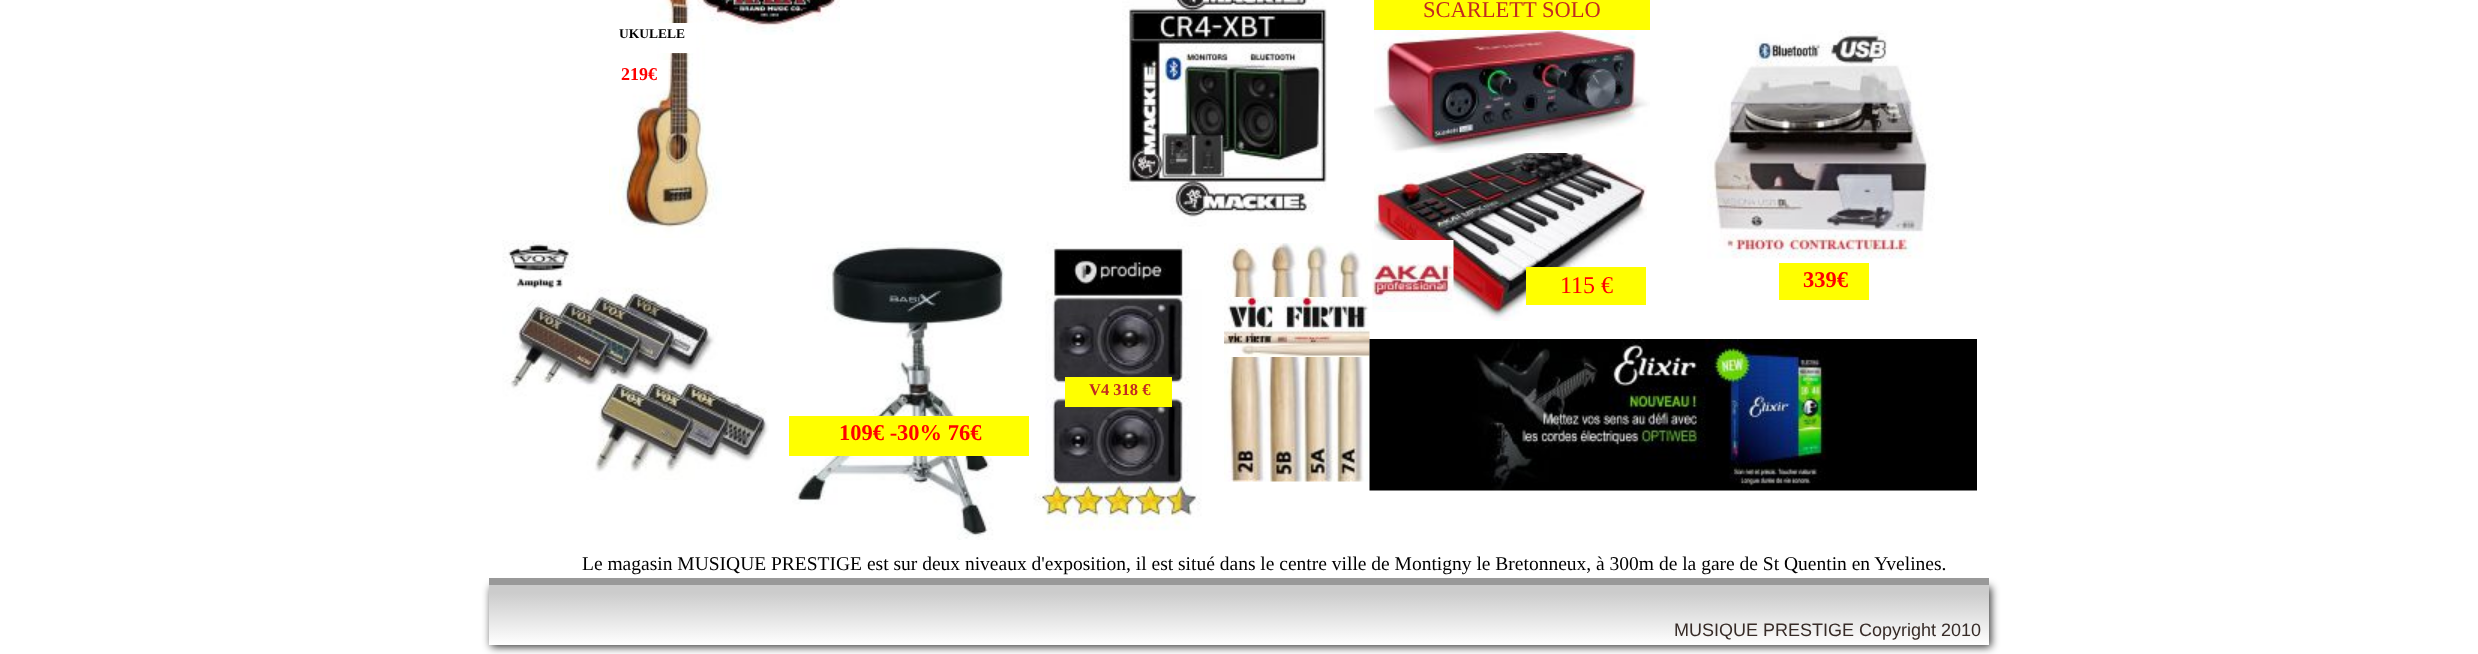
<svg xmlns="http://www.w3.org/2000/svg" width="2478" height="654">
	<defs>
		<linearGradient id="g1" gradientUnits="userSpaceOnUse" x1="684" y1="593" x2="684" y2="645"><stop offset="0" stop-color="#CCCCCC" /><stop offset="1" stop-color="#FFFFFF" /></linearGradient>
	</defs>
	<rect width="100%" height="100%" fill="#FFFFFF" />
	<image x="609" y="0" width="113" height="238" href="assets/img1.png" />
	<image x="697" y="0" width="143" height="35" href="assets/img2.png" />
	<image x="1371" y="153" width="276" height="168" href="assets/img7.png" />
	<image x="1122" y="0" width="252" height="234" href="assets/img3.png" />
	<rect x="1374" y="0" width="276" height="30" fill="#FFFF00" />
	<text x="1423" y="17" font-family="Liberation Serif" font-size="22.5" fill="#C22A20">SCARLETT SOLO</text>
	<rect x="661" y="23" width="35" height="30" fill="#FFFFFF" />
	<text x="619" y="38" font-family="Liberation Serif" font-size="13.5" font-weight="700" fill="#000000">UKULELE</text>
	<image x="1374" y="30" width="276" height="123" href="assets/img4.png" />
	<image x="1707" y="30" width="228" height="229" href="assets/img5.png" />
	<rect x="657" y="60" width="11" height="30" fill="#FFFFFF" />
	<text x="621" y="80" font-family="Liberation Serif" font-size="18" font-weight="700" fill="#FF0000">219€</text>
	<image x="502" y="240" width="267" height="240" href="assets/img6.png" />
	<image x="792" y="241" width="213" height="299" href="assets/img8.png" />
	<image x="1033" y="241" width="169" height="290" href="assets/img9.png" />
	<image x="1224" y="243" width="144" height="239" href="assets/img10.png" />
	<image x="1372" y="240" width="82" height="72" href="assets/img11.png" />
	<rect x="1526" y="267" width="120" height="38" fill="#FFFF00" />
	<text x="1560" y="293" font-family="Liberation Serif" font-size="24" fill="#FF0000">115 €</text>
	<rect x="1779" y="263" width="90" height="37" fill="#FFFF00" />
	<text x="1803" y="287" font-family="Liberation Serif" font-size="22.5" font-weight="700" fill="#FF0000">339€</text>
	<image x="1224" y="297" width="146" height="60" href="assets/img12.png" />
	<rect x="1065" y="377" width="107" height="30" fill="#FFFF00" />
	<text x="1089" y="395" font-family="Liberation Serif" font-size="16.5" font-weight="700" fill="#C22A20">V4 318 €</text>
	<image x="1369" y="339" width="608" height="152" href="assets/img13.png" />
	<rect x="789" y="416" width="240" height="40" fill="#FFFF00" />
	<text x="839" y="440" font-family="Liberation Serif" font-size="22.5" font-weight="700" fill="#FF0000">109€ -30% 76€</text>
	<text x="582" y="570" font-family="Liberation Serif" font-size="19.5" fill="#000000">Le magasin MUSIQUE PRESTIGE est sur deux niveaux d'exposition, il est situé dans le centre ville de Montigny le Bretonneux, à 300m de la gare de St Quentin en Yvelines.</text>
	<rect x="491" y="587" width="1500" height="60" fill="#000000" fill-opacity="0.8" filter="blur(4.5px)" />
	<rect x="489" y="585" width="1500" height="60" fill="url(#g1)" />
	<rect x="489" y="578" width="1500" height="7" fill="#999999" />
	<text x="1674" y="636" font-family="Liberation Sans" font-size="18" fill="#372B27">MUSIQUE PRESTIGE Copyright 2010</text>
</svg>
